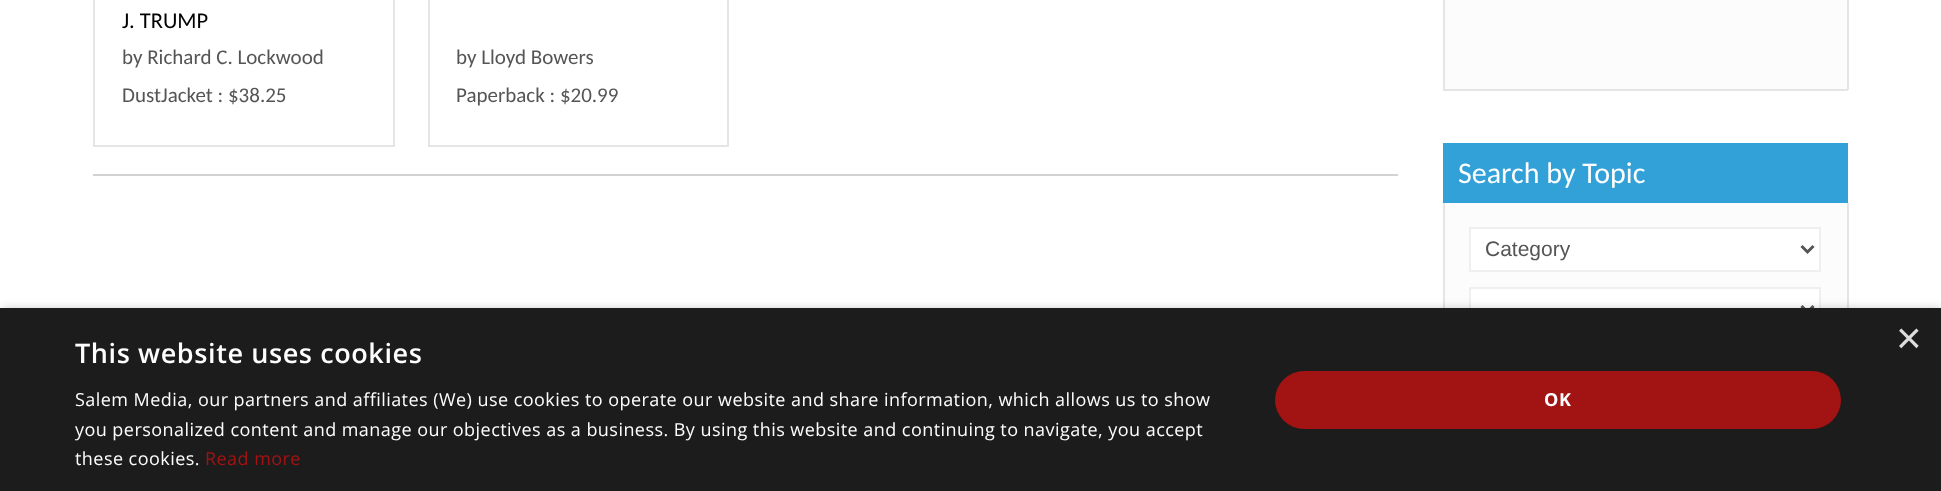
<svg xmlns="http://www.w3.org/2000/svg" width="1941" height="491">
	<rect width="100%" height="100%" fill="#FFFFFF" />
	<rect x="94" y="-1" width="300" height="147" fill="none" stroke="#E5E5E5" stroke-width="2" />
	<text x="122" y="28" font-family="Carlito" font-size="22.5" fill="#000000">J. TRUMP</text>
	<g font-family="Carlito" font-size="21" fill="#555555">
		<text x="122" y="64">by Richard C. Lockwood</text>
		<text x="122" y="102">DustJacket : $38.25</text>
	</g>
	<rect x="429" y="-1" width="299" height="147" fill="none" stroke="#E5E5E5" stroke-width="2" />
	<g font-family="Carlito" font-size="21" fill="#555555">
		<text x="456" y="64">by Lloyd Bowers</text>
		<text x="456" y="102">Paperback : $20.99</text>
	</g>
	<rect x="93" y="174" width="1305" height="2" fill="#D2D2D2" />
	<rect x="1445" y="0" width="402" height="89" fill="#FCFCFC" />
	<rect x="1847" y="0" width="2" height="90" fill="#E5E5E5" />
	<rect x="1443" y="89" width="405" height="2" fill="#E5E5E5" />
	<rect x="1443" y="0" width="2" height="90" fill="#E5E5E5" />
	<rect x="1443" y="143" width="405" height="60" fill="#31A1D8" />
	<text x="1458" y="183" font-family="Carlito" font-size="30" fill="#FEFEFE">Search by Topic</text>
	<rect x="1445" y="203" width="402" height="105" fill="#FCFCFC" />
	<rect x="1847" y="203" width="2" height="105" fill="#E5E5E5" />
	<rect x="1443" y="203" width="2" height="105" fill="#E5E5E5" />
	<rect x="1470" y="228" width="350" height="43" fill="#FFFFFF" stroke="#EFEFEF" stroke-width="2" />
	<path d="M1801.5 246L1807.5 252L1813.5 246" fill="none" stroke="#555555" stroke-width="3" />
	<text x="1485" y="256" font-family="Liberation Sans" font-size="21" fill="#555555">Category</text>
	<rect x="1471" y="289" width="348" height="19" fill="#FFFFFF" />
	<rect x="1470" y="288" width="350" height="43" fill="none" stroke="#EFEFEF" stroke-width="2" />
	<path d="M1801.5 306L1807.5 312L1813.5 306" fill="none" stroke="#555555" stroke-width="3" />
	<rect x="2" y="311" width="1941" height="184" fill="#000000" fill-opacity="0.35" filter="blur(6px)" />
	<rect x="0" y="308" width="1941" height="183" fill="#1C1C1C" />
	<text x="1896" y="353" font-family="Liberation Sans" font-size="44" fill="#DDDDDD">×</text>
	<text x="75" y="363" font-family="Open Sans" font-size="27" font-weight="600" letter-spacing="0.6" fill="#FEFEFE">This website uses cookies</text>
	<g font-family="Open Sans" font-size="18" letter-spacing="0.45" fill="#FEFEFE">
		<text x="75" y="406">Salem Media, our partners and affiliates (We) use cookies to operate our website and share information, which allows us to show</text>
		<text x="75" y="436">you personalized content and manage our objectives as a business. By using this website and continuing to navigate, you accept</text>
		<text x="75" y="465">these cookies.</text>
	</g>
	<text x="205" y="465" font-family="Open Sans" font-size="18" letter-spacing="0.45" fill="#A21313">Read more</text>
	<rect x="1275" y="371" width="566" height="58" rx="29" fill="#A21313" />
	<text x="1544" y="406" font-family="Open Sans" font-size="18" font-weight="700" letter-spacing="0.6" fill="#FEFEFE">OK</text>
</svg>
